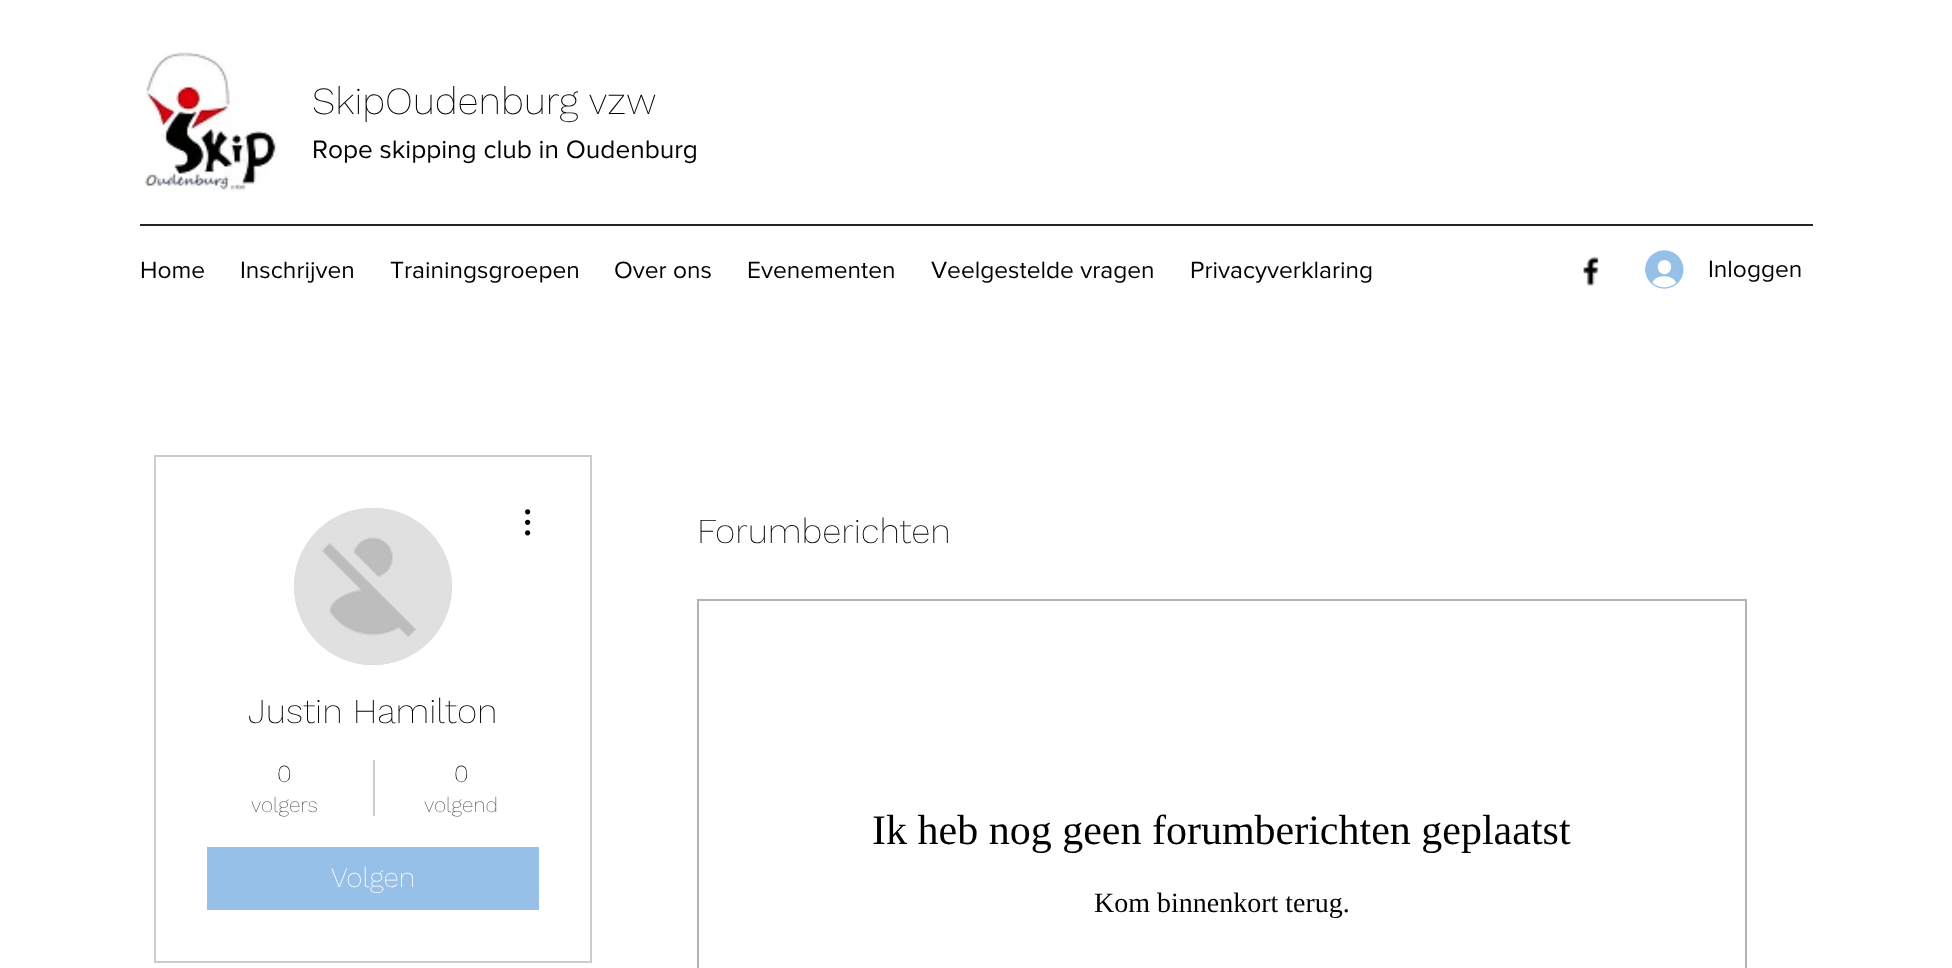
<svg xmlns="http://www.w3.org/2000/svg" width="1952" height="968">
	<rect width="100%" height="100%" fill="#FFFFFF" />
	<image x="144" y="52" width="135" height="140" href="assets/img1.png" />
	<text x="312" y="114" font-family="Work Sans" font-size="38.5" font-weight="200" fill="#000000">SkipOudenburg vzw</text>
	<text x="312" y="158" font-family="'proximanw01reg'" font-size="26.25" fill="#000000">Rope skipping club in Oudenburg</text>
	<rect x="140" y="224" width="1673" height="2" fill="#262626" />
	<g font-family="'proximanw01reg'" font-size="24.5" fill="#000000">
		<text x="140" y="278">Home</text>
		<text x="240" y="278">Inschrijven</text>
		<text x="390" y="278">Trainingsgroepen</text>
		<text x="614" y="278">Over ons</text>
		<text x="747" y="278">Evenementen</text>
		<text x="931" y="278">Veelgestelde vragen</text>
		<text x="1190" y="278">Privacyverklaring</text>
	</g>
	<image x="1583" y="256" width="16" height="30" href="assets/img2.png" />
	<image x="1645" y="250" width="39" height="39" href="assets/img3.png" />
	<text x="1708" y="277" font-family="'proximanw01reg'" font-size="24.5" fill="#000000">Inloggen</text>
	<rect x="155" y="456" width="436" height="506" fill="none" stroke="#CCCCCC" stroke-width="2" />
	<rect x="294" y="508" width="158" height="157" rx="78.5" fill="#D8D8D8" />
	<image x="294" y="508" width="157" height="157" href="assets/img4.png" />
	<image x="525" y="509" width="6" height="27" href="assets/img5.png" />
	<text x="248" y="723" font-family="Work Sans" font-size="35" font-weight="200" fill="#000000">Justin Hamilton</text>
	<text x="277" y="782" font-family="Work Sans" font-size="24.5" font-weight="200" fill="#000000">0</text>
	<text x="251" y="812" font-family="Work Sans" font-size="21" font-weight="200" fill="#4D4D4D">volgers</text>
	<rect x="373" y="760" width="2" height="56" fill="#CCCCCC" />
	<text x="454" y="782" font-family="Work Sans" font-size="24.5" font-weight="200" fill="#000000">0</text>
	<text x="424" y="812" font-family="Work Sans" font-size="21" font-weight="200" fill="#4D4D4D">volgend</text>
	<rect x="207" y="847" width="332" height="63" fill="#97C0E8" />
	<text x="331" y="887" font-family="Work Sans" font-size="28" font-weight="200" fill="#FFFFFF">Volgen</text>
	<text x="697" y="543" font-family="Work Sans" font-size="35" font-weight="200" fill="#000000">Forumberichten</text>
	<rect x="698" y="600" width="1048" height="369" fill="none" stroke="#B3B3B3" stroke-width="2" />
	<text x="872" y="844" font-family="Liberation Serif" font-size="42" fill="#000000">Ik heb nog geen forumberichten geplaatst</text>
	<text x="1094" y="912" font-family="Liberation Serif" font-size="28" fill="#000000">Kom binnenkort terug.</text>
</svg>
